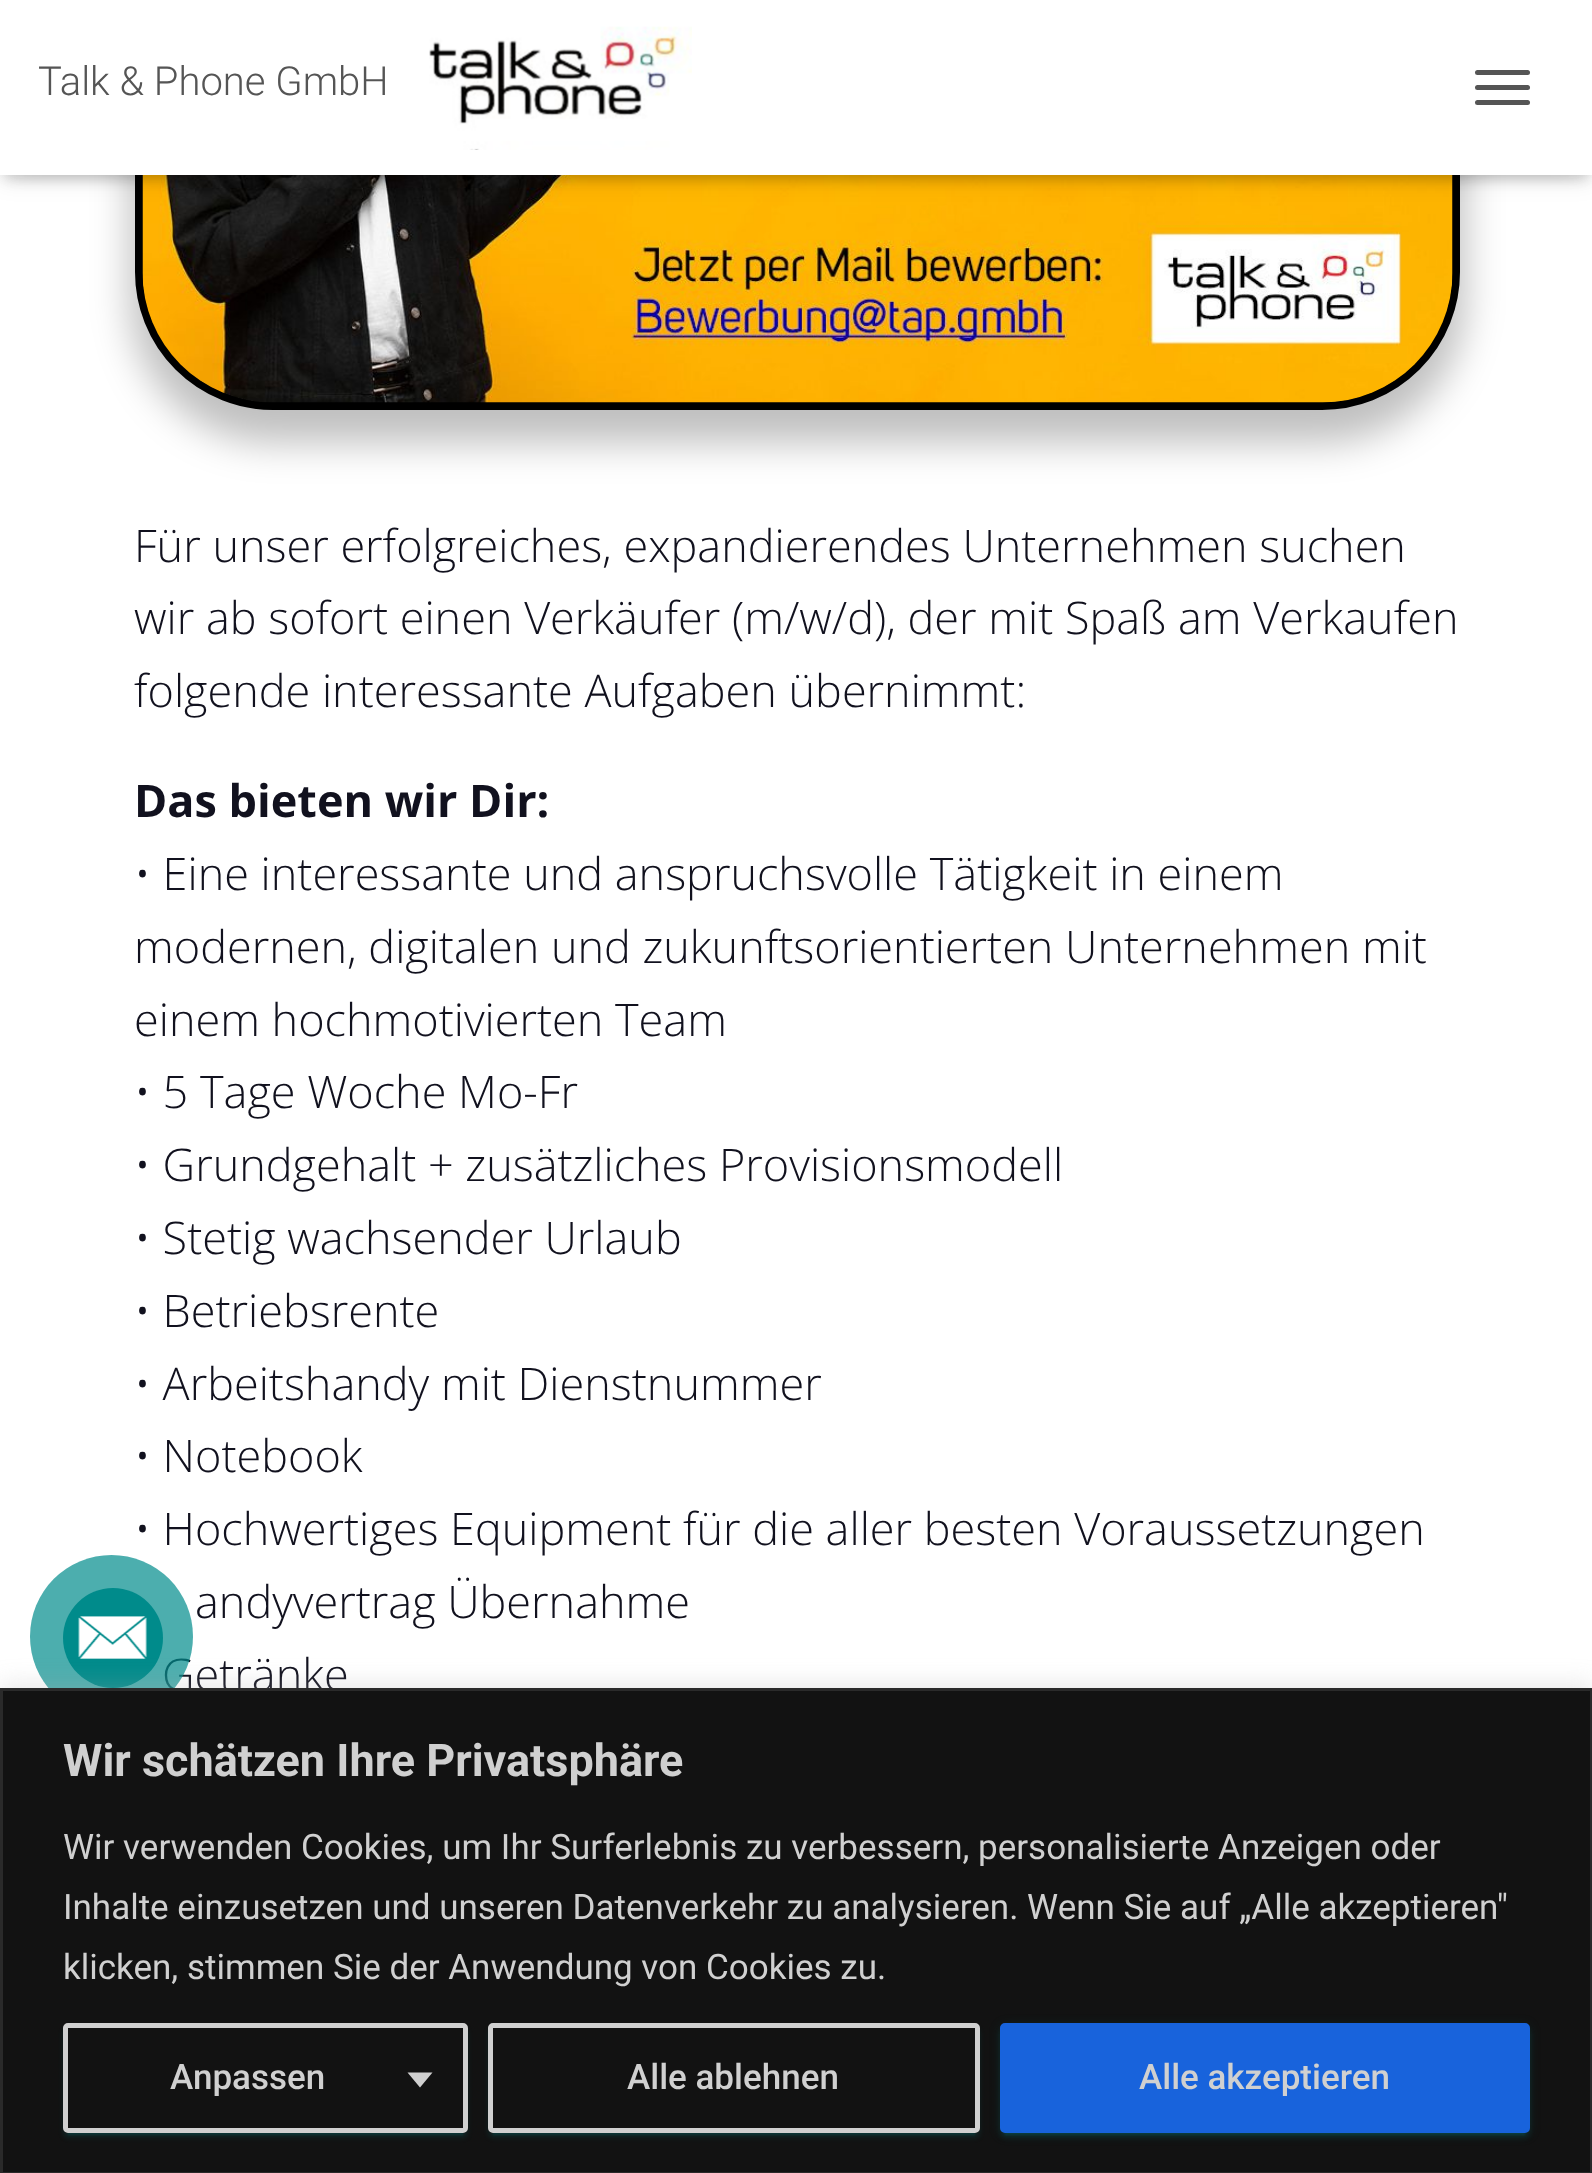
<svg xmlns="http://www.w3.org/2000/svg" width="1592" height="2173">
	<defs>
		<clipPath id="clip1"><path d="M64 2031H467V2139H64ZM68 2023H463C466 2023 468 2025 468 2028V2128C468 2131 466 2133 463 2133H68C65 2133 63 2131 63 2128V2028C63 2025 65 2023 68 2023Z" clip-rule="evenodd" /></clipPath>
		<clipPath id="clip2"><path d="M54 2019H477V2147H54ZM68 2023H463C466 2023 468 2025 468 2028V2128C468 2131 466 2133 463 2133H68C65 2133 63 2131 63 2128V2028C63 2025 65 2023 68 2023Z" clip-rule="evenodd" /></clipPath>
		<clipPath id="clip3"><path d="M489 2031H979V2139H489ZM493 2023H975C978 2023 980 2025 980 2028V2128C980 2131 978 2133 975 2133H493C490 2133 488 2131 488 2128V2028C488 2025 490 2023 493 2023Z" clip-rule="evenodd" /></clipPath>
		<clipPath id="clip4"><path d="M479 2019H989V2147H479ZM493 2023H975C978 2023 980 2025 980 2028V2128C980 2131 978 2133 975 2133H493C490 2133 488 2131 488 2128V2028C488 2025 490 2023 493 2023Z" clip-rule="evenodd" /></clipPath>
	</defs>
	<rect width="100%" height="100%" fill="#FFFFFF" />
	<rect x="130" y="-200" width="1335" height="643" rx="143" fill="#000000" fill-opacity="0.25" filter="blur(19px)" />
	<rect x="139" y="-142" width="1317" height="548" rx="134" fill="none" stroke="#000000" stroke-width="8" />
	<image x="142" y="175" width="1311" height="228" href="assets/img2.png" />
	<rect x="5" y="15" width="1583" height="165" fill="#000000" fill-opacity="0.1" filter="blur(6px)" />
	<rect x="0" y="3" width="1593" height="175" fill="#000000" fill-opacity="0.12" filter="blur(12.5px)" />
	<rect x="15" y="18" width="1563" height="145" fill="#000000" fill-opacity="0.42" filter="blur(12.5px)" />
	<rect x="0" y="0" width="1592" height="175" fill="#FFFFFF" />
	<text x="38" y="95" font-family="Roboto" font-size="40" font-weight="300" fill="#555555">Talk &amp; Phone GmbH</text>
	<image x="429" y="26" width="263" height="124" href="assets/img1.png" />
	<rect x="1475" y="70" width="55" height="5" rx="2.5" fill="#555555" />
	<rect x="1475" y="85" width="55" height="5" rx="2.5" fill="#555555" />
	<rect x="1475" y="100" width="55" height="5" rx="2.5" fill="#555555" />
	<g font-family="Open Sans" font-size="45" font-weight="300" fill="#11111E">
		<text x="134" y="562">Für unser erfolgreiches, expandierendes Unternehmen suchen</text>
		<text x="134" y="634">wir ab sofort einen Verkäufer (m/w/d), der mit Spaß am Verkaufen</text>
		<text x="134" y="707">folgende interessante Aufgaben übernimmt:</text>
	</g>
	<text x="134" y="817" font-family="Open Sans" font-size="45" font-weight="700" fill="#11111E">Das bieten wir Dir:</text>
	<g font-family="Open Sans" font-size="45" font-weight="300" fill="#11111E">
		<text x="134" y="890">• Eine interessante und anspruchsvolle Tätigkeit in einem</text>
		<text x="134" y="963">modernen, digitalen und zukunftsorientierten Unternehmen mit</text>
		<text x="134" y="1036">einem hochmotivierten Team</text>
		<text x="134" y="1108">• 5 Tage Woche Mo-Fr</text>
		<text x="134" y="1181">• Grundgehalt + zusätzliches Provisionsmodell</text>
		<text x="134" y="1254">• Stetig wachsender Urlaub</text>
		<text x="134" y="1327">• Betriebsrente</text>
		<text x="134" y="1400">• Arbeitshandy mit Dienstnummer</text>
		<text x="134" y="1472">• Notebook</text>
		<text x="134" y="1545">• Hochwertiges Equipment für die aller besten Voraussetzungen</text>
		<text x="195" y="1618">andyvertrag Übernahme</text>
		<text x="162" y="1691">Getränke</text>
	</g>
	<circle cx="111.5" cy="1636.5" r="81.5" fill="#008B8B" fill-opacity="0.7" />
	<circle cx="113" cy="1638" r="50" fill="#008B8B" />
	<image x="78" y="1616" width="69" height="43" href="assets/img3.png" />
	<rect x="0" y="1685" width="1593" height="488" fill="#ACABAB" fill-opacity="0.3" filter="blur(12.5px)" />
	<rect x="1.5" y="1689.5" width="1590" height="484" fill="#121212" stroke="#2A2A2A" stroke-width="3" />
	<text x="63" y="1776" font-family="Roboto" font-size="45" font-weight="700" fill="#D0D0D0">Wir schätzen Ihre Privatsphäre</text>
	<g font-family="Roboto" font-size="35" fill="#D0D0D0">
		<text x="63" y="1859">Wir verwenden Cookies, um Ihr Surferlebnis zu verbessern, personalisierte Anzeigen oder</text>
		<text x="63" y="1919">Inhalte einzusetzen und unseren Datenverkehr zu analysieren. Wenn Sie auf „Alle akzeptieren"</text>
		<text x="63" y="1979">klicken, stimmen Sie der Anwendung von Cookies zu.</text>
	</g>
	<g clip-path="url(#clip1)">
		<rect x="68" y="2035" width="395" height="100" fill="#008B8B" fill-opacity="0.2" filter="blur(1px)" />
	</g>
	<g clip-path="url(#clip2)">
		<rect x="63" y="2028" width="405" height="110" rx="5" fill="#008B8B" fill-opacity="0.14" filter="blur(2.5px)" />
	</g>
	<rect x="65.5" y="2025.5" width="400" height="105" rx="2.5" fill="none" stroke="#D0D0D0" stroke-width="5" />
	<text x="170" y="2089" font-family="Roboto" font-size="35" font-weight="500" fill="#D0D0D0">Anpassen</text>
	<path d="M407.5 2072.5H432.5L420 2087.5Z" fill="#D0D0D0" />
	<g clip-path="url(#clip3)">
		<rect x="493" y="2035" width="482" height="100" fill="#008B8B" fill-opacity="0.2" filter="blur(1px)" />
	</g>
	<g clip-path="url(#clip4)">
		<rect x="488" y="2028" width="492" height="110" rx="5" fill="#008B8B" fill-opacity="0.14" filter="blur(2.5px)" />
	</g>
	<rect x="490.5" y="2025.5" width="487" height="105" rx="2.5" fill="none" stroke="#D0D0D0" stroke-width="5" />
	<text x="627" y="2089" font-family="Roboto" font-size="35" font-weight="500" fill="#D0D0D0">Alle ablehnen</text>
	<rect x="1000" y="2025" width="530" height="110" rx="5" fill="#008B8B" fill-opacity="0.12" filter="blur(6px)" />
	<rect x="1005" y="2035" width="520" height="100" fill="#008B8B" fill-opacity="0.2" filter="blur(1px)" />
	<rect x="1000" y="2028" width="530" height="110" rx="5" fill="#008B8B" fill-opacity="0.14" filter="blur(2.5px)" />
	<rect x="1002.5" y="2025.5" width="525" height="105" rx="2.5" fill="#1863DC" stroke="#1863DC" stroke-width="5" />
	<text x="1139" y="2089" font-family="Roboto" font-size="35" font-weight="500" fill="#D0D0D0">Alle akzeptieren</text>
</svg>
